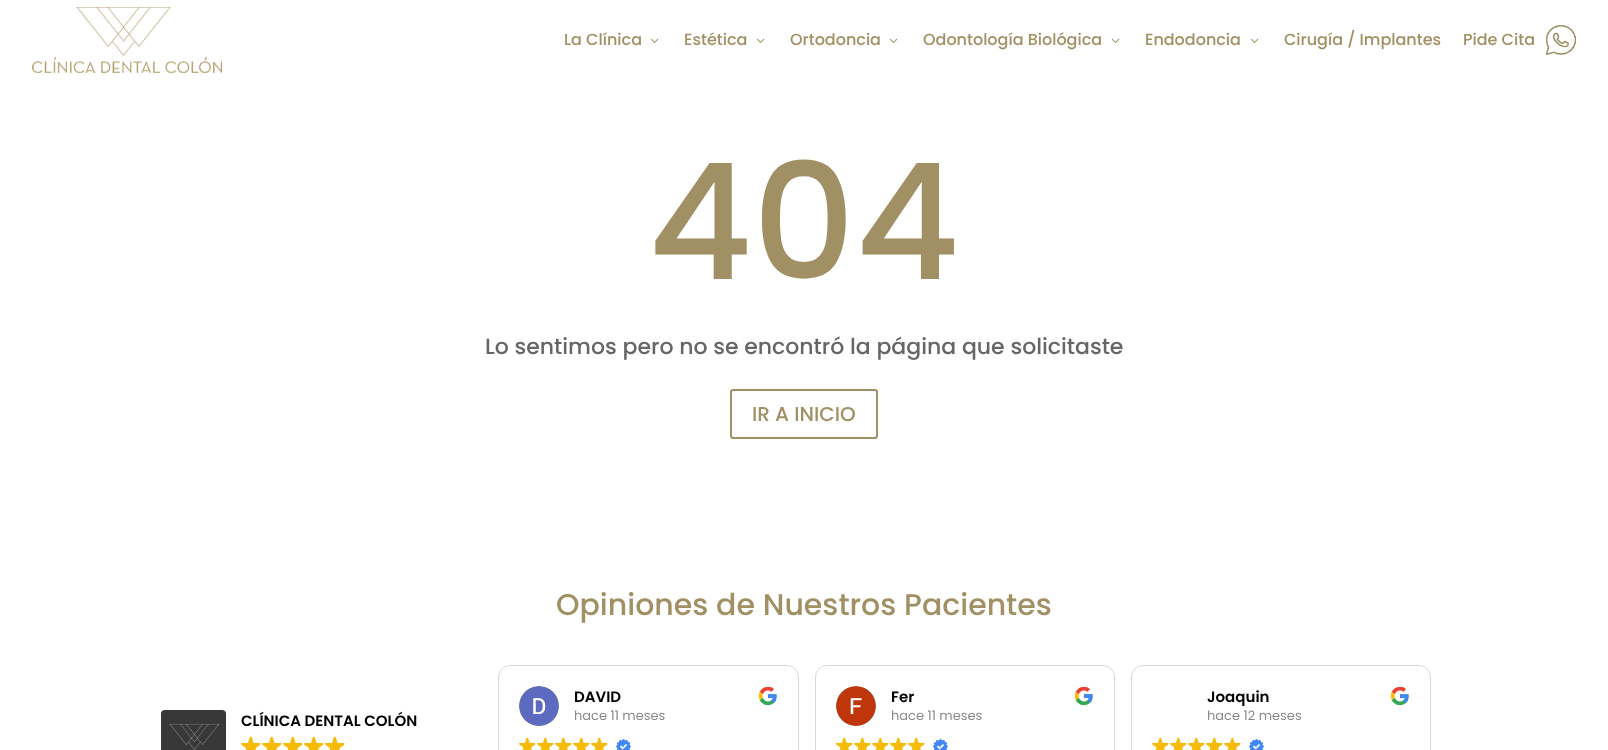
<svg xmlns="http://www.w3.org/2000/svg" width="1608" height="750">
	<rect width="100%" height="100%" fill="#FFFFFF" />
	<image x="32" y="7" width="190" height="66" href="assets/img1.png" />
	<text x="564" y="45" font-family="Poppins" font-size="16" font-weight="500" fill="#A19063">La Clínica</text>
	<image x="650" y="38" width="9" height="5" href="assets/img2.png" />
	<text x="684" y="45" font-family="Poppins" font-size="16" font-weight="500" fill="#A19063">Estética</text>
	<image x="756" y="38" width="9" height="5" href="assets/img2.png" />
	<text x="790" y="45" font-family="Poppins" font-size="16" font-weight="500" fill="#A19063">Ortodoncia</text>
	<image x="889" y="38" width="9" height="5" href="assets/img2.png" />
	<text x="923" y="45" font-family="Poppins" font-size="16" font-weight="500" fill="#A19063">Odontología Biológica</text>
	<image x="1111" y="38" width="9" height="5" href="assets/img2.png" />
	<text x="1145" y="45" font-family="Poppins" font-size="16" font-weight="500" fill="#A19063">Endodoncia</text>
	<image x="1250" y="38" width="9" height="5" href="assets/img2.png" />
	<g font-family="Poppins" font-size="16" font-weight="500" fill="#A19063">
		<text x="1284" y="45">Cirugía / Implantes</text>
		<text x="1463" y="45">Pide Cita</text>
	</g>
	<image x="1546" y="25" width="30" height="30" href="assets/img3.png" />
	<text x="648" y="279" font-family="Poppins" font-size="161" font-weight="500" fill="#A19063">404</text>
	<text x="485" y="354" font-family="Poppins" font-size="22" font-weight="500" fill="#666666">Lo sentimos pero no se encontró la página que solicitaste</text>
	<rect x="731" y="390" width="146" height="48" rx="2" fill="none" stroke="#A19063" stroke-width="2" />
	<text x="752" y="421" font-family="Poppins" font-size="20" font-weight="500" fill="#A19063">IR A INICIO</text>
	<text x="556" y="615" font-family="Poppins" font-size="30" font-weight="500" fill="#A19063">Opiniones de Nuestros Pacientes</text>
	<image x="161" y="710" width="65" height="40" href="assets/img4.png" />
	<text x="241" y="726" font-family="Poppins" font-size="15" font-weight="600" fill="#000000">CLÍNICA DENTAL COLÓN</text>
	<image x="241" y="736" width="20" height="14" href="assets/img5.png" />
	<image x="262" y="736" width="20" height="14" href="assets/img5.png" />
	<image x="283" y="736" width="20" height="14" href="assets/img5.png" />
	<image x="304" y="736" width="20" height="14" href="assets/img5.png" />
	<image x="325" y="736" width="20" height="14" href="assets/img5.png" />
	<rect x="498.5" y="665.5" width="300" height="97" rx="11.5" fill="none" stroke="#D9D9D9" />
	<image x="519" y="686" width="40" height="40" href="assets/img6.png" />
	<text x="574" y="702" font-family="Poppins" font-size="15" font-weight="600" fill="#000000">DAVID</text>
	<text x="574" y="720" font-family="Poppins" font-size="13" fill="#8A8A8A">hace 11 meses</text>
	<image x="758" y="686" width="19" height="20" href="assets/img7.png" />
	<image x="519" y="737" width="17" height="13" href="assets/img8.png" />
	<image x="537" y="737" width="17" height="13" href="assets/img8.png" />
	<image x="555" y="737" width="17" height="13" href="assets/img8.png" />
	<image x="573" y="737" width="17" height="13" href="assets/img8.png" />
	<image x="591" y="737" width="17" height="13" href="assets/img8.png" />
	<image x="616" y="739" width="15" height="11" href="assets/img9.png" />
	<rect x="815.5" y="665.5" width="299" height="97" rx="11.5" fill="none" stroke="#D9D9D9" />
	<image x="836" y="686" width="40" height="40" href="assets/img10.png" />
	<text x="891" y="702" font-family="Poppins" font-size="15" font-weight="600" fill="#000000">Fer</text>
	<text x="891" y="720" font-family="Poppins" font-size="13" fill="#8A8A8A">hace 11 meses</text>
	<image x="1074" y="686" width="19" height="20" href="assets/img7.png" />
	<image x="836" y="737" width="17" height="13" href="assets/img8.png" />
	<image x="854" y="737" width="17" height="13" href="assets/img8.png" />
	<image x="872" y="737" width="17" height="13" href="assets/img8.png" />
	<image x="890" y="737" width="17" height="13" href="assets/img8.png" />
	<image x="908" y="737" width="17" height="13" href="assets/img8.png" />
	<image x="933" y="739" width="15" height="11" href="assets/img9.png" />
	<rect x="1131.5" y="665.5" width="299" height="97" rx="11.5" fill="none" stroke="#D9D9D9" />
	<text x="1207" y="702" font-family="Poppins" font-size="15" font-weight="600" fill="#000000">Joaquin</text>
	<text x="1207" y="720" font-family="Poppins" font-size="13" fill="#8A8A8A">hace 12 meses</text>
	<image x="1390" y="686" width="19" height="20" href="assets/img11.png" />
	<image x="1152" y="737" width="17" height="13" href="assets/img8.png" />
	<image x="1170" y="737" width="17" height="13" href="assets/img8.png" />
	<image x="1188" y="737" width="17" height="13" href="assets/img8.png" />
	<image x="1206" y="737" width="17" height="13" href="assets/img8.png" />
	<image x="1224" y="737" width="17" height="13" href="assets/img8.png" />
	<image x="1249" y="739" width="15" height="11" href="assets/img9.png" />
</svg>
